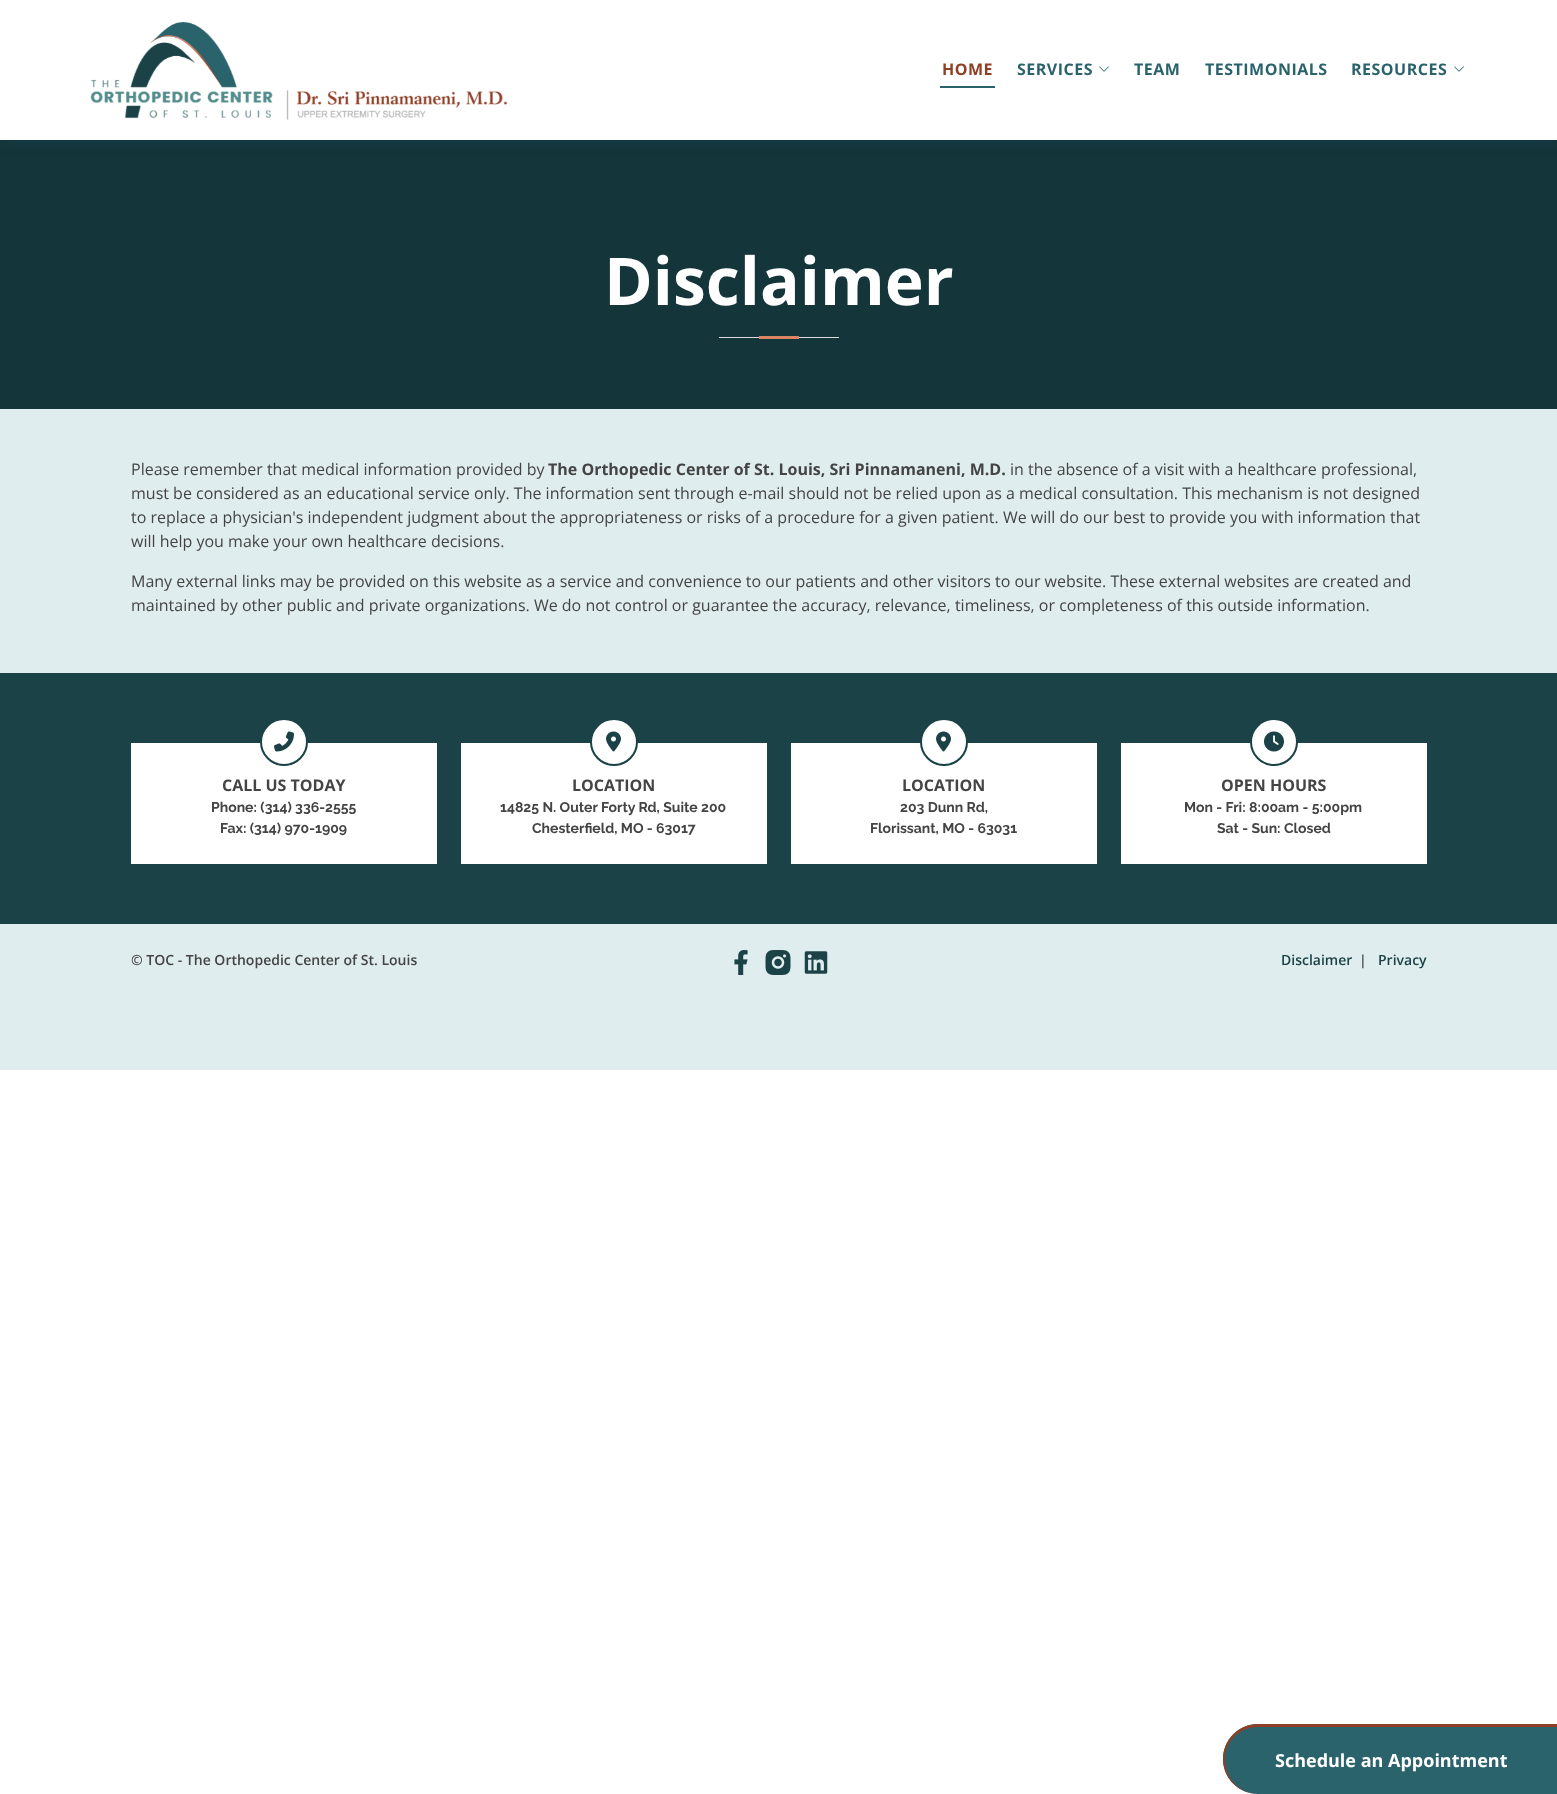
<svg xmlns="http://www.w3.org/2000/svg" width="1557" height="1794">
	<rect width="100%" height="100%" fill="#FFFFFF" />
	<rect x="0" y="140" width="1557" height="269" fill="#143539" />
	<rect x="0" y="2" width="1557" height="140" fill="#1977CC" fill-opacity="0.1" filter="blur(7.5px)" />
	<rect x="0" y="0" width="1557" height="140" fill="#FFFFFF" />
	<image x="90" y="22" width="417" height="98" href="assets/img1.png" />
	<rect x="940" y="86" width="55" height="2" fill="#2B636D" />
	<text x="942" y="75" font-family="Open Sans" font-size="16" font-weight="700" letter-spacing="0.5" fill="#8E3F25">HOME</text>
	<text x="1017" y="75" font-family="Open Sans" font-size="16" font-weight="700" letter-spacing="0.5" fill="#2B636D">SERVICES</text>
	<image x="1099" y="66" width="10" height="6" href="assets/img2.png" />
	<g font-family="Open Sans" font-size="16" font-weight="700" letter-spacing="0.5" fill="#2B636D">
		<text x="1134" y="75">TEAM</text>
		<text x="1205" y="75">TESTIMONIALS</text>
		<text x="1351" y="75">RESOURCES</text>
	</g>
	<image x="1454" y="66" width="10" height="6" href="assets/img2.png" />
	<text x="604" y="305" font-family="Open Sans" font-size="66" font-weight="700" fill="#FFFFFF">Disclaimer</text>
	<rect x="719" y="337" width="120" height="1" fill="#DDDDDD" />
	<rect x="759" y="336" width="40" height="3" fill="#D98462" />
	<rect x="0" y="409" width="1557" height="264" fill="#E0EDEF" />
	<text x="131" y="475" font-family="Open Sans" font-size="16" fill="#444444">Please remember that medical information provided by</text>
	<text x="548" y="475" font-family="Open Sans" font-size="16" font-weight="700" fill="#444444">The Orthopedic Center of St. Louis, Sri Pinnamaneni, M.D.</text>
	<g font-family="Open Sans" font-size="16" fill="#444444">
		<text x="1010" y="475">in the absence of a visit with a healthcare professional,</text>
		<text x="131" y="499">must be considered as an educational service only. The information sent through e-mail should not be relied upon as a medical consultation. This mechanism is not designed</text>
		<text x="131" y="523">to replace a physician's independent judgment about the appropriateness or risks of a procedure for a given patient. We will do our best to provide you with information that</text>
		<text x="131" y="547">will help you make your own healthcare decisions.</text>
		<text x="131" y="587">Many external links may be provided on this website as a service and convenience to our patients and other visitors to our website. These external websites are created and</text>
		<text x="131" y="611">maintained by other public and private organizations. We do not control or guarantee the accuracy, relevance, timeliness, or completeness of this outside information.</text>
	</g>
	<rect x="0" y="673" width="1557" height="251" fill="#1A4247" />
	<rect x="131" y="743" width="306" height="121" fill="#FFFFFF" />
	<circle cx="284" cy="742" r="23" fill="#FFFFFF" stroke="#1A4247" stroke-width="2" />
	<image x="274" y="731" width="20" height="21" href="assets/img3.png" />
	<text x="222" y="791" font-family="Open Sans" font-size="16" font-weight="700" fill="#444444">CALL US TODAY</text>
	<g font-family="Raleway" font-size="14" font-weight="700" fill="#444444">
		<text x="211" y="812">Phone: (314) 336-2555</text>
		<text x="220" y="833">Fax: (314) 970-1909</text>
	</g>
	<rect x="461" y="743" width="306" height="121" fill="#FFFFFF" />
	<circle cx="614" cy="742" r="23" fill="#FFFFFF" stroke="#1A4247" stroke-width="2" />
	<image x="606" y="731" width="15" height="21" href="assets/img4.png" />
	<text x="572" y="791" font-family="Open Sans" font-size="16" font-weight="700" fill="#444444">LOCATION</text>
	<g font-family="Raleway" font-size="14" font-weight="700" fill="#444444">
		<text x="500" y="812">14825 N. Outer Forty Rd, Suite 200</text>
		<text x="532" y="833">Chesterfield, MO - 63017</text>
	</g>
	<rect x="791" y="743" width="306" height="121" fill="#FFFFFF" />
	<circle cx="944" cy="742" r="23" fill="#FFFFFF" stroke="#1A4247" stroke-width="2" />
	<image x="936" y="731" width="15" height="21" href="assets/img4.png" />
	<text x="902" y="791" font-family="Open Sans" font-size="16" font-weight="700" fill="#444444">LOCATION</text>
	<g font-family="Raleway" font-size="14" font-weight="700" fill="#444444">
		<text x="900" y="812">203 Dunn Rd,</text>
		<text x="870" y="833">Florissant, MO - 63031</text>
	</g>
	<rect x="1121" y="743" width="306" height="121" fill="#FFFFFF" />
	<circle cx="1274" cy="742" r="23" fill="#FFFFFF" stroke="#1A4247" stroke-width="2" />
	<image x="1264" y="731" width="20" height="21" href="assets/img5.png" />
	<text x="1221" y="791" font-family="Open Sans" font-size="16" font-weight="700" fill="#444444">OPEN HOURS</text>
	<g font-family="Raleway" font-size="14" font-weight="700" fill="#444444">
		<text x="1184" y="812">Mon - Fri: 8:00am - 5:00pm</text>
		<text x="1217" y="833">Sat - Sun: Closed</text>
	</g>
	<rect x="0" y="924" width="1557" height="146" fill="#E0EDEF" />
	<text x="131" y="965" font-family="Open Sans" font-size="14" font-weight="600" fill="#444444">© TOC - The Orthopedic Center of St. Louis</text>
	<image x="734" y="950" width="14" height="25" href="assets/img6.png" />
	<image x="765" y="950" width="26" height="25" href="assets/img7.png" />
	<image x="804" y="951" width="24" height="23" href="assets/img8.png" />
	<text x="1281" y="965" font-family="Open Sans" font-size="14" font-weight="600" fill="#1A4247">Disclaimer</text>
	<text x="1359" y="965" font-family="Open Sans" font-size="14" font-weight="600" fill="#444444">|</text>
	<text x="1378" y="965" font-family="Open Sans" font-size="14" font-weight="600" fill="#1A4247">Privacy</text>
	<path d="M1258 1724H1557V1794H1258C1238.5 1794 1223 1778.5 1223 1759C1223 1739.5 1238.5 1724 1258 1724Z" fill="#2B636D" />
	<path d="M1258 1724H1557V1794H1258C1239 1794 1223 1778 1223 1759C1223 1740 1239 1724 1258 1724ZM1258 1727H1557V1794H1258C1240 1794 1225 1778 1225 1759C1225 1741 1240 1727 1258 1727Z" fill="#8E3F25" fill-rule="evenodd" />
	<text x="1275" y="1767" font-family="Open Sans" font-size="18" font-weight="700" fill="#FFFFFF">Schedule an Appointment</text>
</svg>
